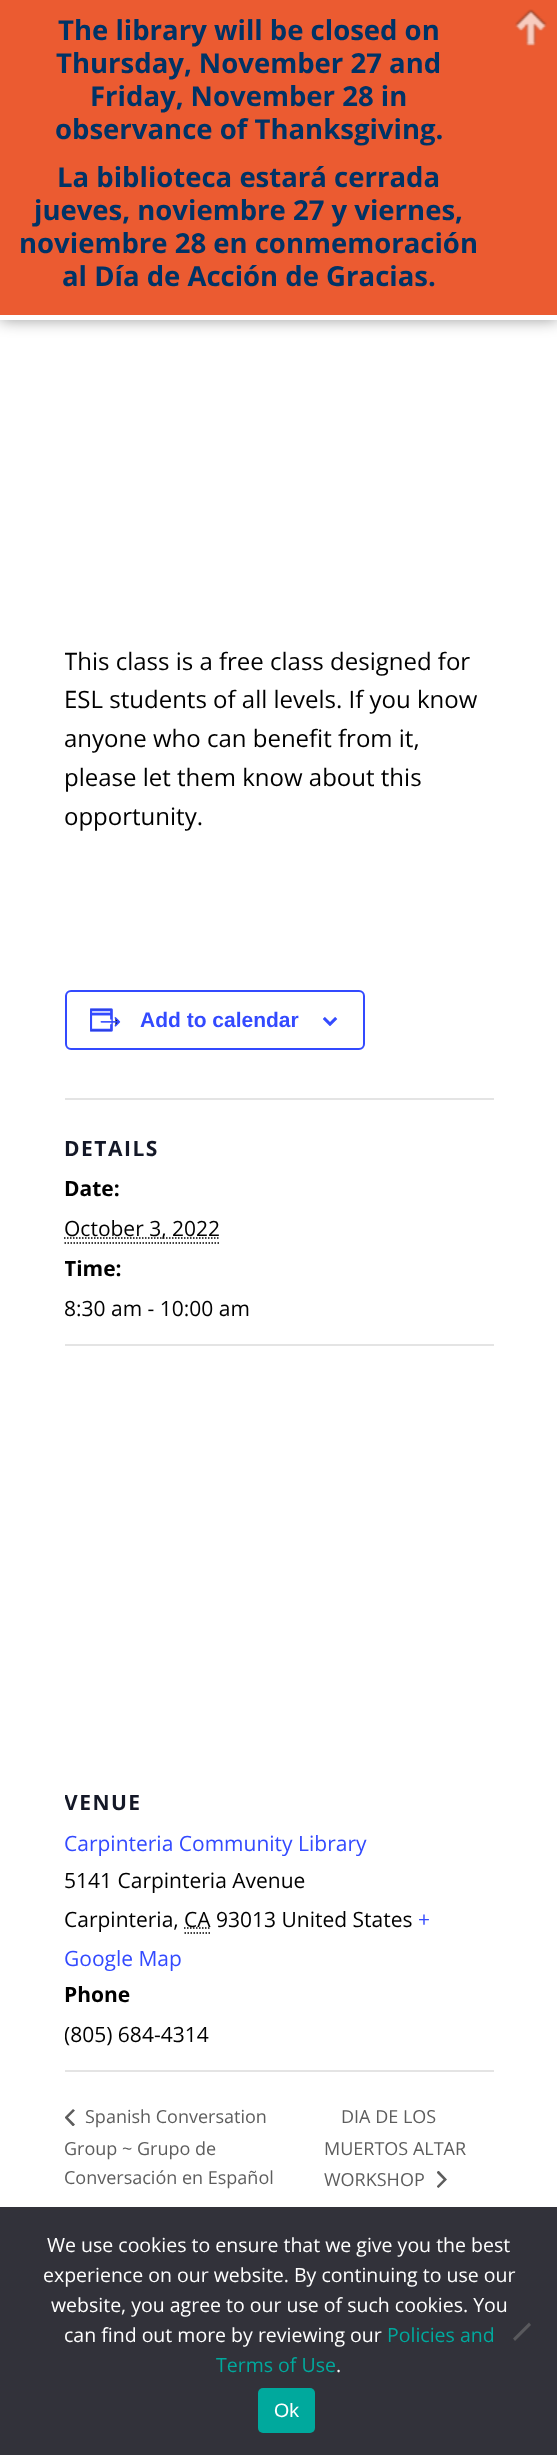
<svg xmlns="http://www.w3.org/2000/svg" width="557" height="2455">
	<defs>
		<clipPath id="clip1"><rect x="65" y="150" width="429" height="1920" /></clipPath>
		<clipPath id="clip2"><rect x="65" y="2109" width="10" height="17" /></clipPath>
		<clipPath id="clip3"><rect x="437" y="2171" width="10" height="18" /></clipPath>
	</defs>
	<rect width="100%" height="100%" fill="#FFFFFF" />
	<rect x="0" y="0" width="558" height="320" fill="#000000" fill-opacity="0.4" filter="blur(8px)" />
	<rect x="0" y="0" width="557" height="315" fill="#EB5B31" />
	<rect x="0" y="315" width="557" height="5" fill="#FFFFFF" />
	<g font-family="Open Sans" font-size="27.5" font-weight="700" fill="#003366">
		<text x="58" y="40">The library will be closed on</text>
		<text x="56" y="73">Thursday, November 27 and</text>
		<text x="90" y="106">Friday, November 28 in</text>
		<text x="55" y="139">observance of Thanksgiving.</text>
		<text x="57" y="187">La biblioteca estará cerrada</text>
		<text x="34" y="220">jueves, noviembre 27 y viernes,</text>
		<text x="19" y="253">noviembre 28 en conmemoración</text>
		<text x="62" y="286">al Día de Acción de Gracias.</text>
	</g>
	<image x="515" y="9" width="32" height="37" href="assets/img1.png" />
	<g clip-path="url(#clip1)">
		<text x="64" y="670" font-family="Open Sans" font-size="24" fill="#000000">This class is a free class designed for</text>
	</g>
	<g font-family="Open Sans" font-size="24" fill="#000000">
		<text x="64" y="708">ESL students of all levels. If you know</text>
		<text x="64" y="747">anyone who can benefit from it,</text>
		<text x="64" y="786">please let them know about this</text>
		<text x="64" y="825">opportunity.</text>
	</g>
	<rect x="66" y="991" width="298" height="58" rx="5" fill="none" stroke="#334AFF" stroke-width="2" />
	<image x="90" y="1008" width="31" height="24" href="assets/img2.png" />
	<text x="140" y="1027" font-family="Liberation Sans" font-size="21" font-weight="700" fill="#334AFF">Add to calendar</text>
	<image x="323" y="1017" width="15" height="9" href="assets/img3.png" />
	<rect x="65" y="1098" width="429" height="2" fill="#E4E4E4" />
	<text x="64" y="1156" font-family="Open Sans" font-size="21" font-weight="700" letter-spacing="1.5" fill="#141827">DETAILS</text>
	<text x="64" y="1196" font-family="Open Sans" font-size="21" font-weight="700" fill="#000000">Date:</text>
	<path d="M64 1238H220" fill="none" stroke="#000000" stroke-width="1.5" stroke-dasharray="1.5 1.5" />
	<text x="64" y="1236" font-family="Open Sans" font-size="21" fill="#000000">October 3, 2022</text>
	<path d="M64.5 1243H220.5" fill="none" stroke="#000000" stroke-width="1.5" stroke-dasharray="1.5 1.5" />
	<g clip-path="url(#clip1)">
		<text x="64" y="1276" font-family="Open Sans" font-size="21" font-weight="700" fill="#000000">Time:</text>
	</g>
	<text x="64" y="1316" font-family="Open Sans" font-size="21" fill="#000000">8:30 am - 10:00 am</text>
	<rect x="65" y="1344" width="429" height="2" fill="#E4E4E4" />
	<g clip-path="url(#clip1)">
		<text x="64" y="1810" font-family="Open Sans" font-size="21" font-weight="700" letter-spacing="1.5" fill="#141827">VENUE</text>
	</g>
	<text x="64" y="1851" font-family="Open Sans" font-size="21" fill="#334AFF">Carpinteria Community Library</text>
	<g font-family="Open Sans" font-size="21" fill="#000000">
		<text x="64" y="1888">5141 Carpinteria Avenue</text>
		<text x="64" y="1927">Carpinteria,</text>
	</g>
	<path d="M184.5 1933H210M184 1928H210.5" fill="none" stroke="#000000" stroke-width="1.5" stroke-dasharray="1.5 1.5" />
	<text x="184" y="1927" font-family="Open Sans" font-size="21" fill="#000000">CA 93013 United States</text>
	<g font-family="Open Sans" font-size="21" fill="#334AFF">
		<text x="418" y="1927">+</text>
		<text x="64" y="1966">Google Map</text>
	</g>
	<text x="64" y="2002" font-family="Open Sans" font-size="21" font-weight="700" fill="#000000">Phone</text>
	<g clip-path="url(#clip1)">
		<text x="64" y="2042" font-family="Open Sans" font-size="21" fill="#000000">(805) 684-4314</text>
	</g>
	<rect x="65" y="2070" width="429" height="2" fill="#E4E4E4" />
	<g clip-path="url(#clip2)">
		<path d="M75 2124.5L73 2126.5L64.5 2117.5L73 2109L75 2110.5L68 2117.5Z" fill="#5D5D5D" />
	</g>
	<g font-family="Open Sans" font-size="18" fill="#5D5D5D">
		<text x="85" y="2123">Spanish Conversation</text>
		<text x="64" y="2155">Group ~ Grupo de</text>
		<text x="64" y="2184">Conversación en Español</text>
		<text x="341" y="2123">DIA DE LOS</text>
		<text x="324" y="2155">MUERTOS ALTAR</text>
		<text x="324" y="2186">WORKSHOP</text>
	</g>
	<g clip-path="url(#clip3)">
		<path d="M436.5 2172.5L438.5 2170.5L447 2179.5L438.5 2188L436.5 2186.5L443.5 2179.5Z" fill="#5D5D5D" />
	</g>
	<rect x="0" y="2207" width="557" height="248" fill="#32323A" />
	<g font-family="Open Sans" font-size="19.5" fill="#FFFFFF">
		<text x="47" y="2252">We use cookies to ensure that we give you the best</text>
		<text x="43" y="2282">experience on our website. By continuing to use our</text>
		<text x="51" y="2312">website, you agree to our use of such cookies. You</text>
		<text x="64" y="2342">can find out more by reviewing our</text>
	</g>
	<g font-family="Open Sans" font-size="19.5" fill="#00A99D">
		<text x="387" y="2342">Policies and</text>
		<text x="216" y="2372">Terms of Use</text>
	</g>
	<text x="336" y="2372" font-family="Open Sans" font-size="19.5" fill="#FFFFFF">.</text>
	<path d="M529 2322.5L531 2325L515 2341L513 2338.5Z" fill="#59595D" />
	<rect x="258" y="2388" width="57" height="45" rx="5" fill="#00A99D" />
	<text x="274" y="2417" font-family="Liberation Sans" font-size="19.5" fill="#FFFFFF">Ok</text>
</svg>
